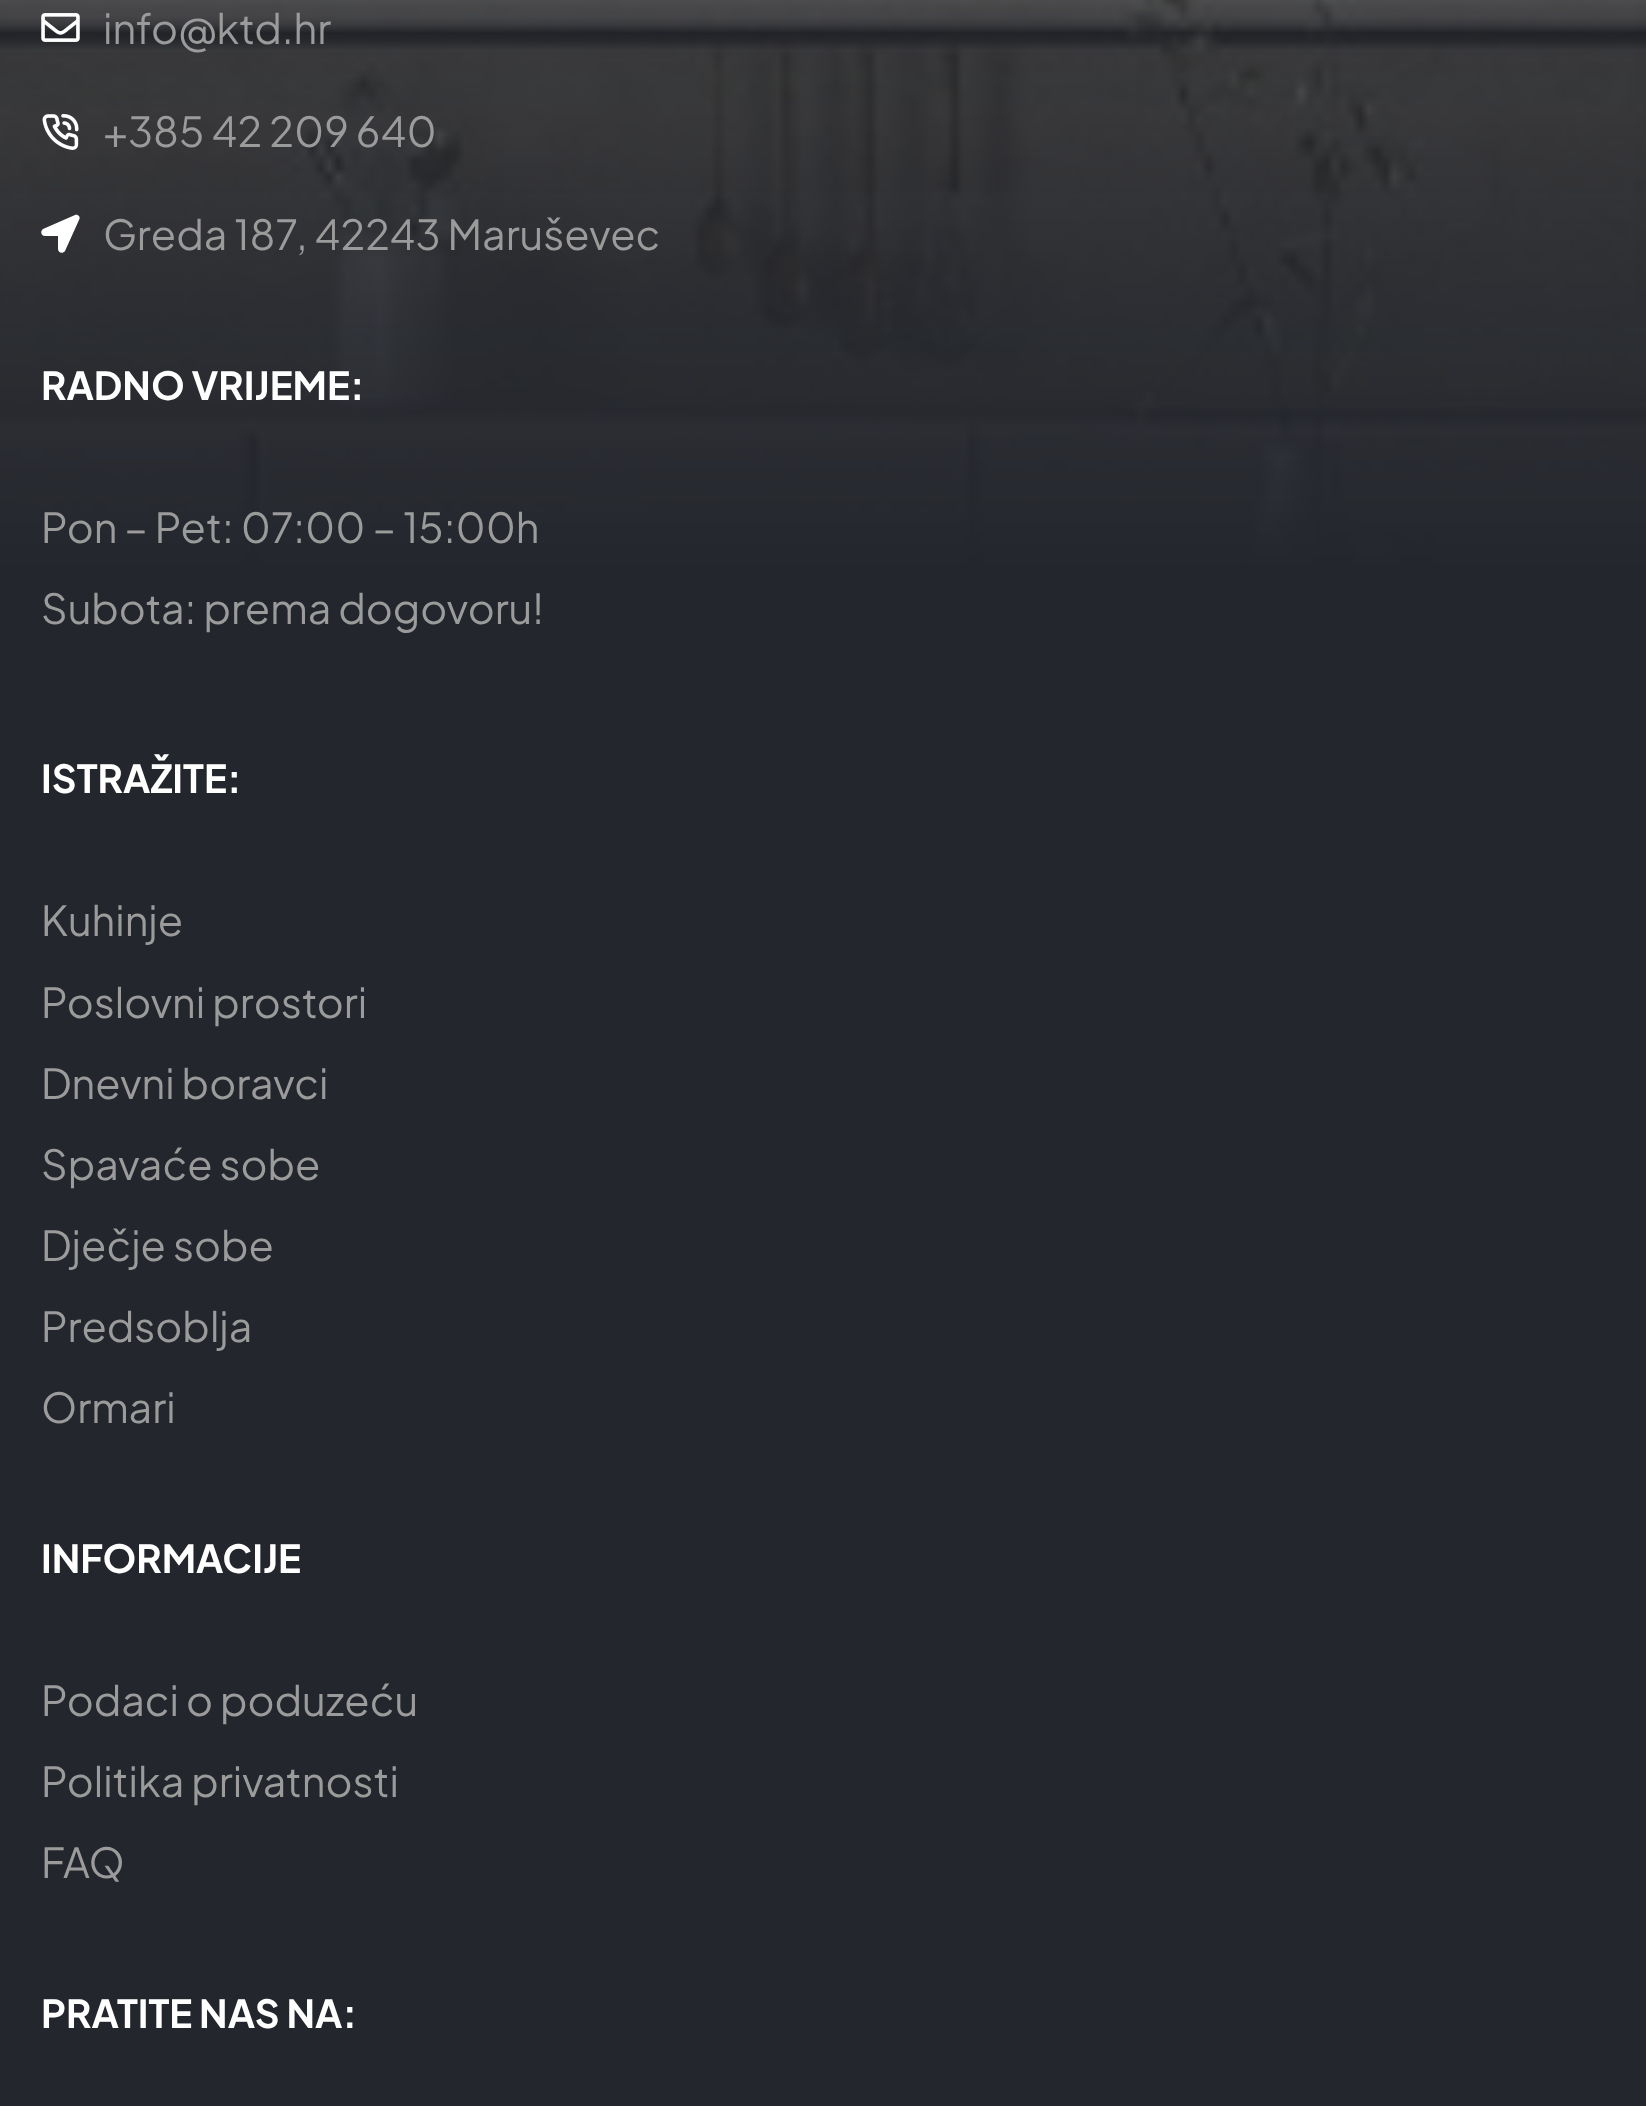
<svg xmlns="http://www.w3.org/2000/svg" width="1646" height="2106">
	<rect width="100%" height="100%" fill="#FFFFFF" />
	<image x="0" y="0" width="1646" height="2106" href="assets/img1.png" />
	<image x="41" y="13" width="39" height="29" href="assets/img2.png" />
	<text x="103" y="44" font-family="Plus Jakarta Sans" font-size="41.25" fill="#9B9B9B">info@ktd.hr</text>
	<image x="42" y="114" width="37" height="36" href="assets/img3.png" />
	<text x="103" y="147" font-family="Plus Jakarta Sans" font-size="41.25" fill="#9B9B9B">+385 42 209 640</text>
	<path d="M75 215L43 229C40 231 41 236 45 236H58V249C58 253 63 254 65 251L79 220C81 217 78 214 75 215Z" fill="#FFFFFF" />
	<text x="103" y="250" font-family="Plus Jakarta Sans" font-size="41.25" fill="#9B9B9B">Greda 187, 42243 Maruševec</text>
	<text x="41" y="400" font-family="Plus Jakarta Sans" font-size="38.5" font-weight="700" fill="#FFFFFF">RADNO VRIJEME:</text>
	<g font-family="Plus Jakarta Sans" font-size="41.25" fill="#9B9B9B">
		<text x="41" y="543">Pon – Pet: 07:00 – 15:00h</text>
		<text x="41" y="624">Subota: prema dogovoru!</text>
	</g>
	<text x="41" y="793" font-family="Plus Jakarta Sans" font-size="38.5" font-weight="700" fill="#FFFFFF">ISTRAŽITE:</text>
	<g font-family="Plus Jakarta Sans" font-size="41.25" fill="#9B9B9B">
		<text x="41" y="936">Kuhinje</text>
		<text x="41" y="1018">Poslovni prostori</text>
		<text x="41" y="1099">Dnevni boravci</text>
		<text x="41" y="1180">Spavaće sobe</text>
		<text x="41" y="1261">Dječje sobe</text>
		<text x="41" y="1342">Predsoblja</text>
		<text x="41" y="1423">Ormari</text>
	</g>
	<text x="41" y="1573" font-family="Plus Jakarta Sans" font-size="38.5" font-weight="700" fill="#FFFFFF">INFORMACIJE</text>
	<g font-family="Plus Jakarta Sans" font-size="41.25" fill="#9B9B9B">
		<text x="41" y="1716">Podaci o poduzeću</text>
		<text x="41" y="1797">Politika privatnosti</text>
		<text x="41" y="1878">FAQ</text>
	</g>
	<text x="41" y="2028" font-family="Plus Jakarta Sans" font-size="38.5" font-weight="700" fill="#FFFFFF">PRATITE NAS NA:</text>
</svg>
